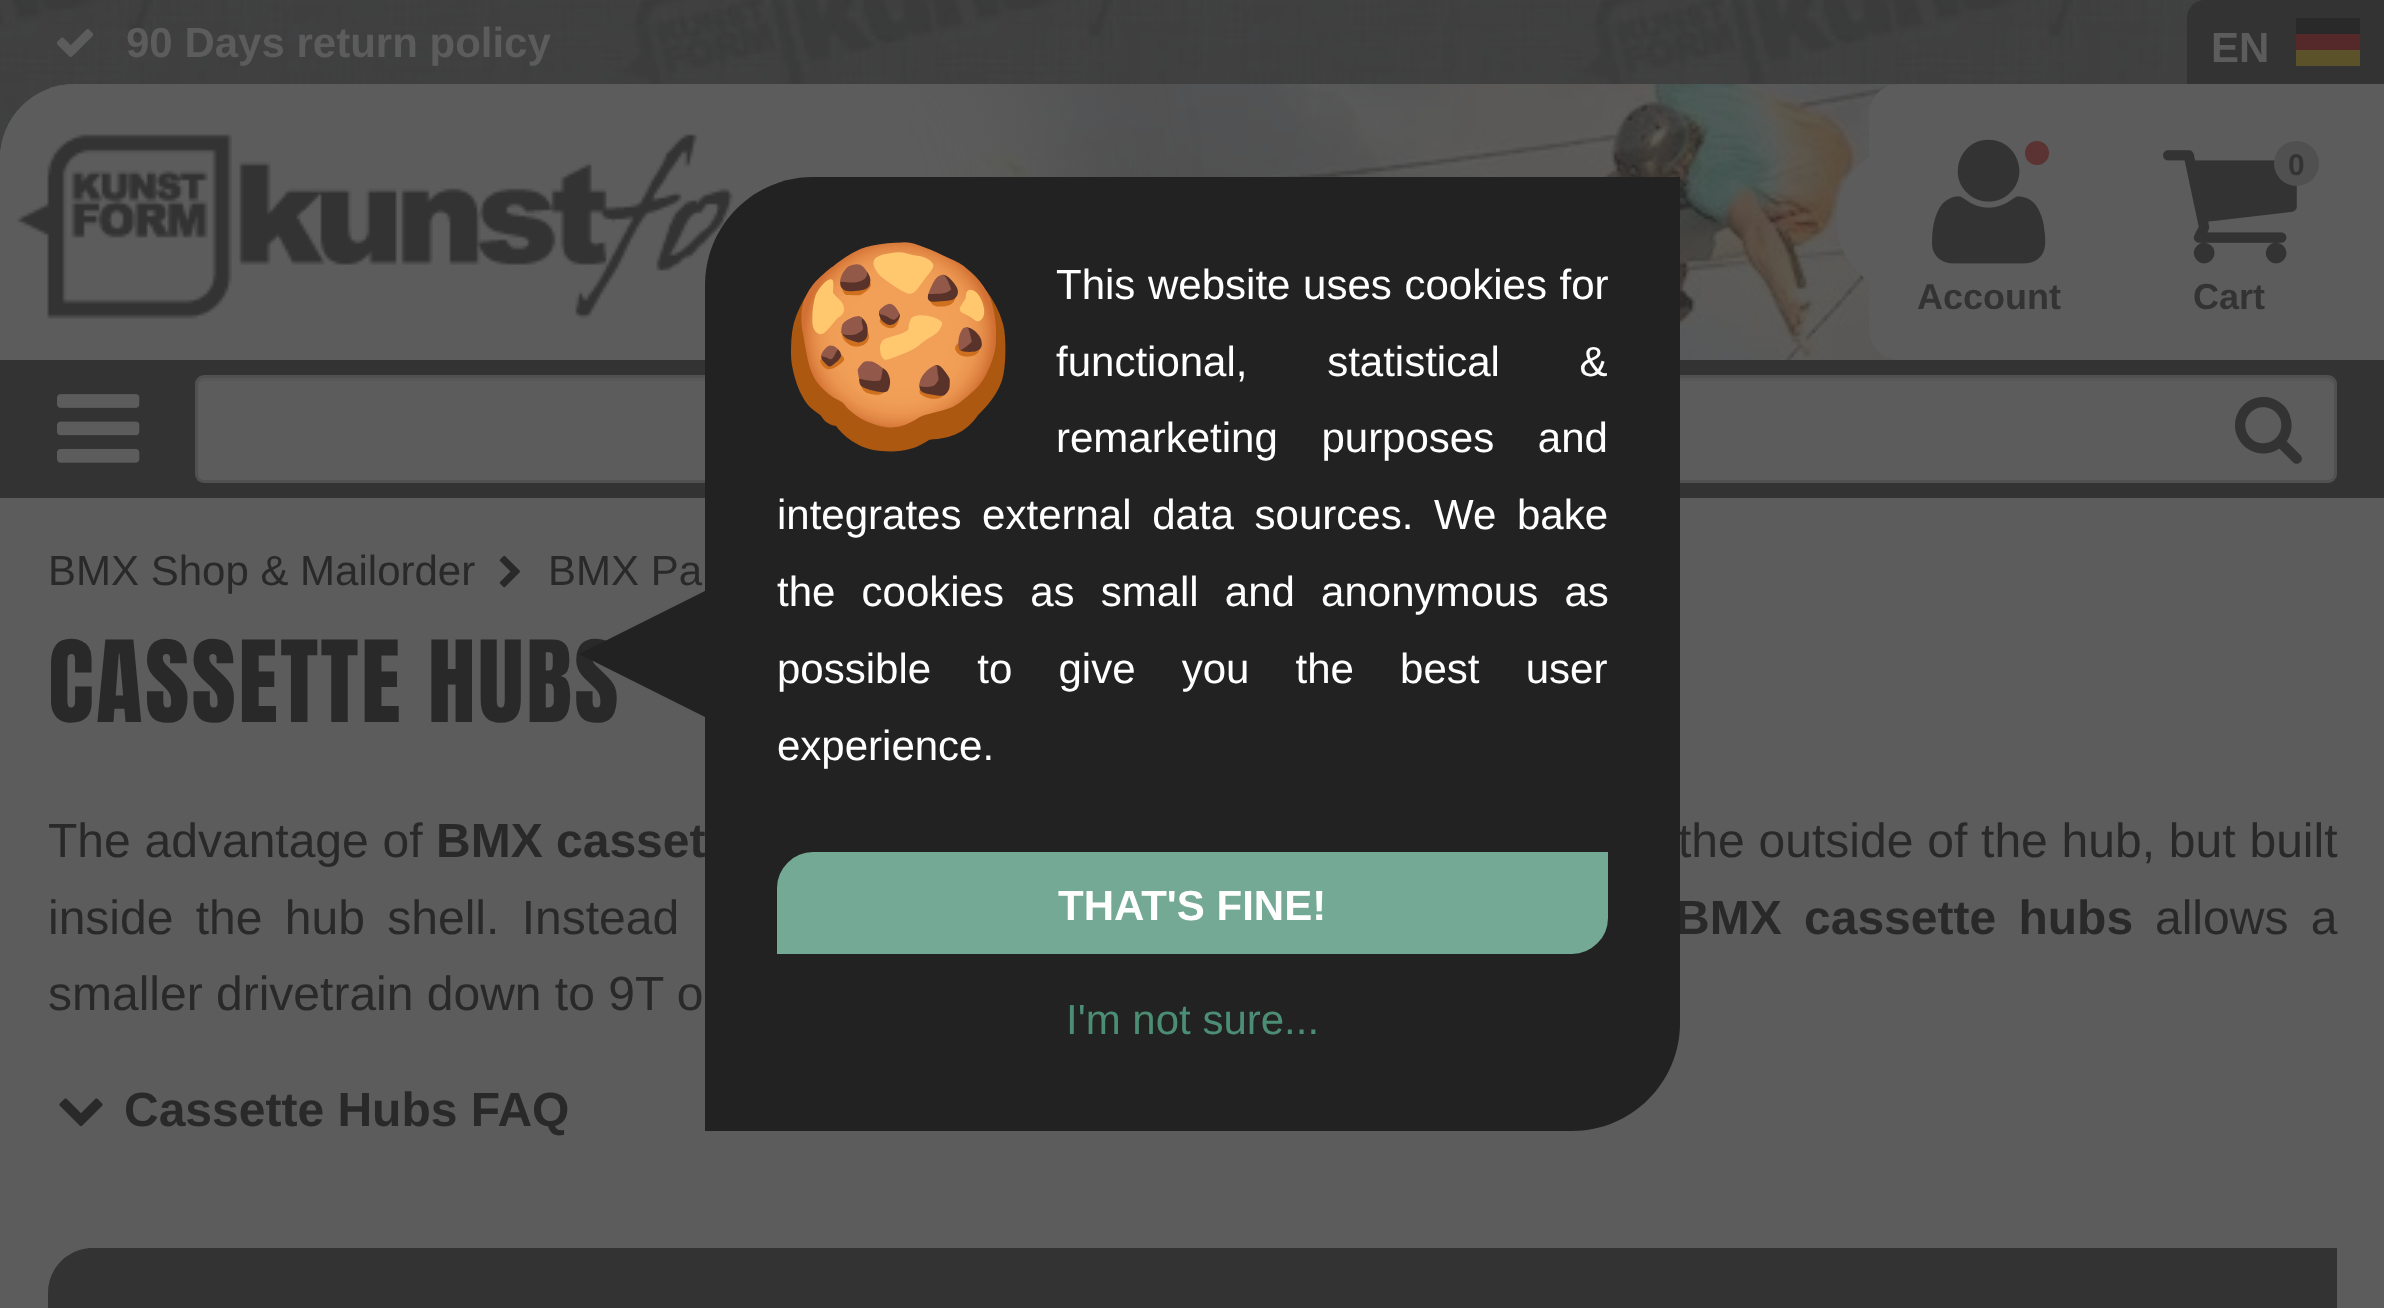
<svg xmlns="http://www.w3.org/2000/svg" width="2384" height="1308">
	<defs>
		<clipPath id="clip1"><path d="M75 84H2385V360H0V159C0 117.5 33.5 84 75 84Z" /></clipPath>
	</defs>
	<rect width="100%" height="100%" fill="#FFFFFF" />
	<image x="0" y="0" width="2205" height="159" href="assets/img1.png" />
	<image x="0" y="84" width="1899" height="276" href="assets/img3.png" />
	<g clip-path="url(#clip1)">
		<rect x="-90" y="-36" width="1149" height="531" rx="195" fill="#5C5C5C" filter="blur(60px)" />
	</g>
	<image x="56" y="29" width="38" height="28" href="assets/img2.png" />
	<text x="126" y="57" font-family="Liberation Sans" font-size="42" font-weight="700" fill="#5C5C5C">90 Days return policy</text>
	<path d="M2205 0H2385V84H2187V18C2187 8 2195 0 2205 0Z" fill="#333333" />
	<text x="2211" y="62" font-family="Liberation Sans" font-size="42" font-weight="700" fill="#5C5C5C">EN</text>
	<rect x="2296" y="50" width="64" height="16" fill="#5C5229" />
	<rect x="2296" y="18" width="64" height="16" fill="#292929" />
	<rect x="2296" y="34" width="64" height="16" fill="#552929" />
	<path d="M75 84H909V360H0V159C0 117.5 33.5 84 75 84Z" fill="#5C5C5C" />
	<image x="17" y="134" width="738" height="185" href="assets/img4.png" />
	<path d="M1899 84H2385V360H1899C1882.5 360 1869 346.5 1869 330V114C1869 97.5 1882.5 84 1899 84Z" fill="#5C5C5C" />
	<path d="M1911 144H1920V294H1911C1869.5 294 1836 260.5 1836 219C1836 177.5 1869.5 144 1911 144Z" fill="#5C5C5C" />
	<image x="1932" y="139" width="114" height="125" href="assets/img5.png" />
	<circle cx="2037" cy="153" r="12" fill="#5C3333" />
	<text x="1917" y="309" font-family="Liberation Sans" font-size="36" font-weight="700" fill="#333333">Account</text>
	<image x="2163" y="150" width="134" height="114" href="assets/img6.png" />
	<circle cx="2296.5" cy="163.5" r="22.5" fill="#505050" />
	<text x="2288" y="175" font-family="Liberation Sans" font-size="30" font-weight="700" fill="#333333">0</text>
	<text x="2193" y="309" font-family="Liberation Sans" font-size="36" font-weight="700" fill="#333333">Cart</text>
	<rect x="0" y="360" width="2384" height="138" fill="#333333" />
	<image x="57" y="394" width="83" height="69" href="assets/img7.png" />
	<rect x="195" y="375" width="2142" height="108" rx="9" fill="#5C5C5C" />
	<path d="M204 381H2328C2331 381 2334 384 2334 387C2334 383 2333 378 2328 378H204C199 378 198 383 198 387C198 384 201 381 204 381Z" fill="#585858" />
	<rect x="196.5" y="376.5" width="2139" height="105" rx="7.5" fill="none" stroke="#292929" stroke-opacity="0.2" stroke-width="3" />
	<image x="2235" y="396" width="67" height="68" href="assets/img8.png" />
	<rect x="0" y="498" width="2384" height="810" fill="#5C5C5C" />
	<text x="48" y="585" font-family="Liberation Sans" font-size="42" fill="#292929">BMX Shop &amp; Mailorder</text>
	<image x="499" y="555" width="21" height="33" href="assets/img9.png" />
	<text x="548" y="585" font-family="Liberation Sans" font-size="42" fill="#292929">BMX Pa</text>
	<text x="48" y="722" font-family="Anton" font-size="96" letter-spacing="2.4" fill="#292929">CASSETTE HUBS</text>
	<text x="48" y="857" word-spacing="0.5" font-family="Liberation Sans" font-size="48" fill="#292929">The advantage of</text>
	<text x="436" y="857" font-family="Liberation Sans" font-size="48" font-weight="700" fill="#292929">BMX casset</text>
	<g font-family="Liberation Sans" font-size="48" fill="#292929">
		<text x="1678" y="857" word-spacing="0.5">the outside of the hub, but built</text>
		<text x="48" y="934" word-spacing="9">inside the hub shell. Instead</text>
	</g>
	<text x="1675" y="934" word-spacing="9" font-family="Liberation Sans" font-size="48" font-weight="700" fill="#292929">BMX cassette hubs</text>
	<g font-family="Liberation Sans" font-size="48" fill="#292929">
		<text x="2155" y="934" word-spacing="9">allows a</text>
		<text x="48" y="1010">smaller drivetrain down to 9T o</text>
	</g>
	<image x="59" y="1098" width="44" height="29" href="assets/img10.png" />
	<text x="124" y="1126" font-family="Liberation Sans" font-size="48" font-weight="700" fill="#292929">Cassette Hubs FAQ</text>
	<path d="M93 1248H2337V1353H48V1293C48 1268 68 1248 93 1248Z" fill="#333333" />
	<path d="M705 591V717L579 654Z" fill="#222222" />
	<path d="M813 177H1680V1023C1680 1082.5 1631.5 1131 1572 1131H705V285C705 225.5 753.5 177 813 177Z" fill="#222222" />
	<text x="777" y="413" font-family="Noto Color Emoji" font-size="195" fill="#000000">🍪</text>
	<g font-family="Liberation Sans" font-size="42" fill="#FFFFFF">
		<text x="1056" y="299" word-spacing="1">This website uses cookies for</text>
		<text x="1056" y="376" word-spacing="68">functional, statistical &amp;</text>
		<text x="1056" y="452" word-spacing="32">remarketing purposes and</text>
		<text x="777" y="529" word-spacing="9">integrates external data sources. We bake</text>
		<text x="777" y="606" word-spacing="14.5">the cookies as small and anonymous as</text>
		<text x="777" y="683" word-spacing="34.5">possible to give you the best user</text>
		<text x="777" y="760">experience.</text>
	</g>
	<path d="M813 859.5H1600.5V918C1600.5 933.5 1587.5 946.5 1572 946.5H784.5V888C784.5 872.5 797.5 859.5 813 859.5Z" fill="#74A995" stroke="#74A995" stroke-width="15" />
	<text x="1058" y="920" font-family="Liberation Sans" font-size="42" font-weight="700" fill="#FFFFFF">THAT'S FINE!</text>
	<text x="1066" y="1034" font-family="Liberation Sans" font-size="42" fill="#4C8E75">I'm not sure...</text>
</svg>
